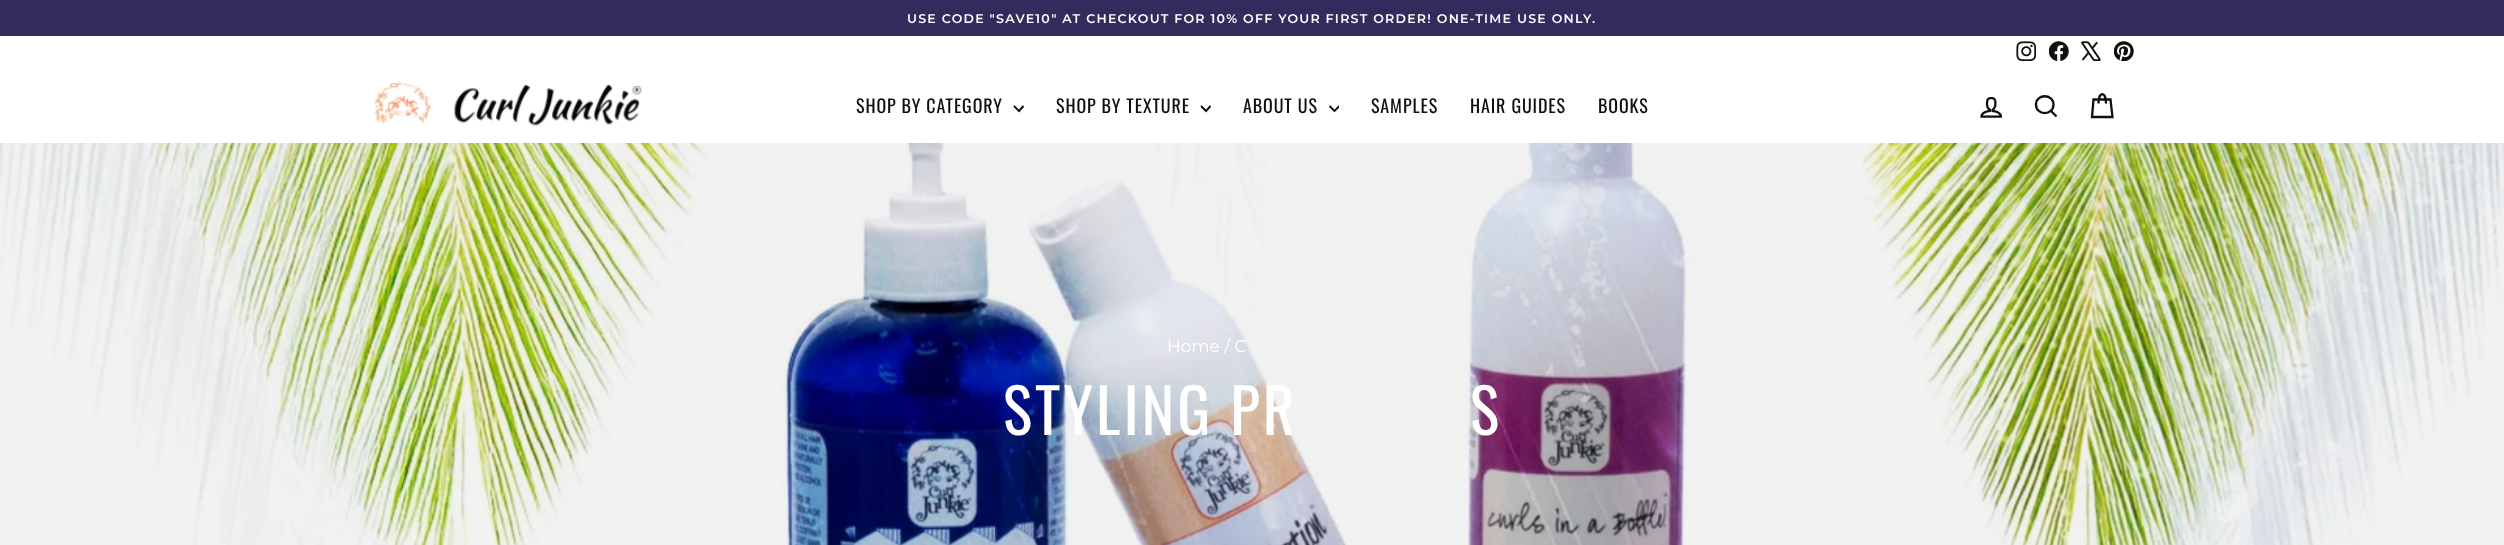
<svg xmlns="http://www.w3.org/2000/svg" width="2504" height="545">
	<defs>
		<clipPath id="clip1"><rect x="1329" y="103" width="10" height="11" /></clipPath>
	</defs>
	<rect width="100%" height="100%" fill="#FFFFFF" />
	<rect x="0" y="0" width="2504" height="36" fill="#342A5B" />
	<text x="907" y="23" font-family="Montserrat" font-size="12.6" font-weight="600" letter-spacing="1.25" fill="#FFFFFF">USE CODE "SAVE10" AT CHECKOUT FOR 10% OFF YOUR FIRST ORDER! ONE-TIME USE ONLY.</text>
	<image x="2016" y="41" width="20" height="20" href="assets/img1.png" />
	<image x="2049" y="41" width="20" height="20" href="assets/img2.png" />
	<image x="2081" y="41" width="20" height="20" href="assets/img3.png" />
	<image x="2114" y="41" width="20" height="20" href="assets/img4.png" />
	<image x="0" y="143" width="2504" height="402" href="assets/img7.png" />
	<rect x="0" y="70" width="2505" height="73" fill="#000000" fill-opacity="0.2" filter="blur(0.5px)" />
	<rect x="0" y="70" width="2504" height="73" fill="#FFFFFF" />
	<image x="374" y="82" width="268" height="44" href="assets/img5.png" />
	<text x="856" y="113" font-family="Oswald" font-size="18" letter-spacing="0.9" fill="#0F0F0F">SHOP BY CATEGORY</text>
	<path d="M1014 106L1019 111L1023.5 106" fill="none" stroke="#0F0F0F" stroke-width="1.9" />
	<text x="1056" y="113" font-family="Oswald" font-size="18" letter-spacing="0.9" fill="#0F0F0F">SHOP BY TEXTURE</text>
	<path d="M1201 106L1206 111L1210.5 106" fill="none" stroke="#0F0F0F" stroke-width="1.9" />
	<text x="1243" y="113" font-family="Oswald" font-size="18" letter-spacing="0.9" fill="#0F0F0F">ABOUT US</text>
	<g clip-path="url(#clip1)">
		<path d="M1329.5 106L1334.5 111L1339.5 106" fill="none" stroke="#0F0F0F" stroke-width="1.9" />
	</g>
	<g font-family="Oswald" font-size="18" letter-spacing="0.9" fill="#0F0F0F">
		<text x="1371" y="113">SAMPLES</text>
		<text x="1470" y="113">HAIR GUIDES</text>
		<text x="1598" y="113">BOOKS</text>
	</g>
	<image x="1980" y="96" width="23" height="22" href="assets/img6.png" />
	<path d="M2053.5 104.5C2053.5 116 2036 116 2036 104.5C2036 93.5 2053.5 93.5 2053.5 104.5ZM2056.5 116.5L2051 111" fill="none" stroke="#0F0F0F" stroke-width="2.3" />
	<path d="M2098.5 103.5C2098.5 91 2106 91 2106 103.5M2093.5 99.5H2110.5L2112.5 117H2092Z" fill="none" stroke="#0F0F0F" stroke-width="2.3" />
	<text x="1167" y="352" font-family="Montserrat" font-size="17" fill="#FFFFFF">Home / C</text>
	<g font-family="Oswald" font-size="61.5" letter-spacing="3" fill="#FFFFFF">
		<text x="1003" y="435">STYLING PR</text>
		<text x="1470" y="435">S</text>
	</g>
</svg>
